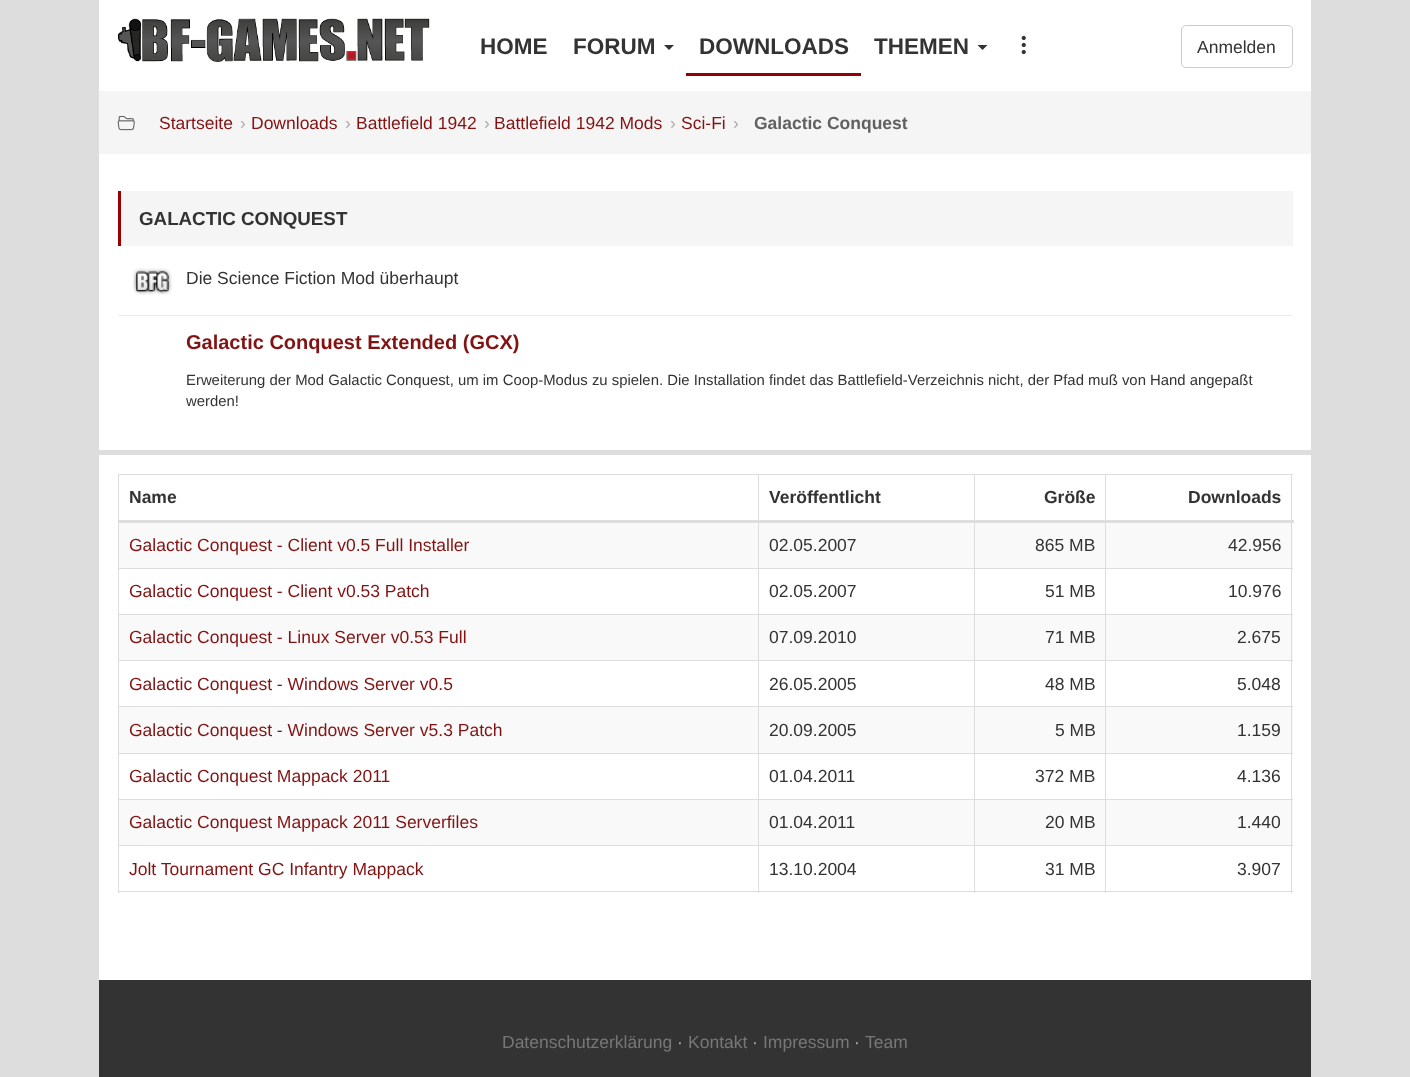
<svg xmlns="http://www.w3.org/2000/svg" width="1410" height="1077">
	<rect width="100%" height="100%" fill="#DDDDDD" />
	<rect x="99" y="0" width="1212" height="91" fill="#FFFFFF" />
	<image x="117" y="18" width="313" height="44" href="assets/img1.png" />
	<g font-family="Liberation Sans" font-size="22.5" font-weight="700" fill="#333333">
		<text x="480" y="54">HOME</text>
		<text x="573" y="54">FORUM</text>
	</g>
	<path d="M664 45H674L669 50Z" fill="#333333" />
	<rect x="686" y="73" width="175" height="3" fill="#960002" />
	<g font-family="Liberation Sans" font-size="22.5" font-weight="700" fill="#333333">
		<text x="699" y="54">DOWNLOADS</text>
		<text x="874" y="54">THEMEN</text>
	</g>
	<path d="M977.5 45H987.5L982.5 50Z" fill="#333333" />
	<image x="1021" y="35" width="5" height="20" href="assets/img2.png" />
	<rect x="1181.5" y="25.5" width="111" height="42" rx="4.5" fill="none" stroke="#CCCCCC" />
	<text x="1197" y="53" font-family="Liberation Sans" font-size="17.5" fill="#333333">Anmelden</text>
	<rect x="99" y="154" width="1212" height="826" fill="#FFFFFF" />
	<rect x="99" y="91" width="1212" height="63" fill="#F5F5F5" />
	<image x="117" y="115" width="18" height="16" href="assets/img3.png" />
	<text x="159" y="129" font-family="Liberation Sans" font-size="17.5" fill="#831313">Startseite</text>
	<text x="240" y="129" font-family="Liberation Sans" font-size="17.5" fill="#AAAAAA">›</text>
	<text x="251" y="129" font-family="Liberation Sans" font-size="17.5" fill="#831313">Downloads</text>
	<text x="345" y="129" font-family="Liberation Sans" font-size="17.5" fill="#AAAAAA">›</text>
	<text x="356" y="129" font-family="Liberation Sans" font-size="17.5" fill="#831313">Battlefield 1942</text>
	<text x="484" y="129" font-family="Liberation Sans" font-size="17.5" fill="#AAAAAA">›</text>
	<text x="494" y="129" font-family="Liberation Sans" font-size="17.5" fill="#831313">Battlefield 1942 Mods</text>
	<text x="670" y="129" font-family="Liberation Sans" font-size="17.5" fill="#AAAAAA">›</text>
	<text x="681" y="129" font-family="Liberation Sans" font-size="17.5" fill="#831313">Sci-Fi</text>
	<text x="733" y="129" font-family="Liberation Sans" font-size="17.5" fill="#AAAAAA">›</text>
	<text x="754" y="129" font-family="Liberation Sans" font-size="17.5" font-weight="700" fill="#616161">Galactic Conquest</text>
	<rect x="99" y="450" width="1212" height="5" fill="#DDDDDD" />
	<rect x="121" y="191" width="1172" height="55" fill="#F5F5F5" />
	<rect x="118" y="191" width="3" height="55" fill="#990000" />
	<text x="139" y="225" font-family="Liberation Sans" font-size="18.75" font-weight="700" fill="#333333">GALACTIC CONQUEST</text>
	<image x="133" y="268" width="39" height="27" href="assets/img4.png" />
	<text x="186" y="284" font-family="Liberation Sans" font-size="17.5" fill="#333333">Die Science Fiction Mod überhaupt</text>
	<rect x="118" y="315" width="1175" height="1" fill="#EBEBEB" />
	<text x="186" y="349" font-family="Liberation Sans" font-size="20" font-weight="700" fill="#831313">Galactic Conquest Extended (GCX)</text>
	<g font-family="Liberation Sans" font-size="14.88" fill="#333333">
		<text x="186" y="385">Erweiterung der Mod Galactic Conquest, um im Coop-Modus zu spielen. Die Installation findet das Battlefield-Verzeichnis nicht, der Pfad muß von Hand angepaßt</text>
		<text x="186" y="406">werden!</text>
	</g>
	<rect x="118" y="474" width="1175" height="1" fill="#DDDDDD" />
	<rect x="119" y="523" width="1174" height="45" fill="#F9F9F9" />
	<rect x="119" y="615" width="1174" height="45" fill="#F9F9F9" />
	<rect x="119" y="707" width="1174" height="46" fill="#F9F9F9" />
	<rect x="119" y="800" width="1174" height="45" fill="#F9F9F9" />
	<rect x="1291" y="474" width="1" height="419" fill="#DDDDDD" />
	<rect x="118" y="891" width="1175" height="1" fill="#DDDDDD" />
	<rect x="118" y="474" width="1" height="419" fill="#DDDDDD" />
	<g font-family="Liberation Sans" font-size="17.5" font-weight="700" fill="#333333">
		<text x="129" y="503">Name</text>
		<text x="769" y="503">Veröffentlicht</text>
		<text x="1044" y="503">Größe</text>
	</g>
	<rect x="1105" y="568" width="188" height="1" fill="#DDDDDD" />
	<rect x="1105" y="614" width="188" height="1" fill="#DDDDDD" />
	<rect x="1105" y="660" width="188" height="1" fill="#DDDDDD" />
	<rect x="1105" y="706" width="188" height="1" fill="#DDDDDD" />
	<rect x="1105" y="753" width="188" height="1" fill="#DDDDDD" />
	<rect x="1105" y="799" width="188" height="1" fill="#DDDDDD" />
	<rect x="1105" y="845" width="188" height="1" fill="#DDDDDD" />
	<rect x="1105" y="845" width="1" height="48" fill="#DDDDDD" />
	<rect x="974" y="845" width="132" height="1" fill="#DDDDDD" />
	<rect x="1105" y="799" width="1" height="47" fill="#DDDDDD" />
	<rect x="974" y="799" width="132" height="1" fill="#DDDDDD" />
	<rect x="1105" y="753" width="1" height="47" fill="#DDDDDD" />
	<rect x="974" y="753" width="132" height="1" fill="#DDDDDD" />
	<rect x="1105" y="706" width="1" height="48" fill="#DDDDDD" />
	<rect x="974" y="706" width="132" height="1" fill="#DDDDDD" />
	<rect x="1105" y="660" width="1" height="48" fill="#DDDDDD" />
	<rect x="974" y="660" width="132" height="1" fill="#DDDDDD" />
	<rect x="1105" y="614" width="1" height="47" fill="#DDDDDD" />
	<rect x="974" y="614" width="132" height="1" fill="#DDDDDD" />
	<rect x="1105" y="568" width="1" height="47" fill="#DDDDDD" />
	<rect x="974" y="568" width="132" height="1" fill="#DDDDDD" />
	<rect x="974" y="845" width="1" height="48" fill="#DDDDDD" />
	<rect x="758" y="845" width="217" height="1" fill="#DDDDDD" />
	<rect x="974" y="799" width="1" height="47" fill="#DDDDDD" />
	<rect x="758" y="799" width="217" height="1" fill="#DDDDDD" />
	<rect x="974" y="753" width="1" height="47" fill="#DDDDDD" />
	<rect x="758" y="753" width="217" height="1" fill="#DDDDDD" />
	<rect x="974" y="706" width="1" height="48" fill="#DDDDDD" />
	<rect x="758" y="706" width="217" height="1" fill="#DDDDDD" />
	<rect x="974" y="660" width="1" height="48" fill="#DDDDDD" />
	<rect x="758" y="660" width="217" height="1" fill="#DDDDDD" />
	<rect x="974" y="614" width="1" height="47" fill="#DDDDDD" />
	<rect x="758" y="614" width="217" height="1" fill="#DDDDDD" />
	<rect x="974" y="568" width="1" height="47" fill="#DDDDDD" />
	<rect x="758" y="568" width="217" height="1" fill="#DDDDDD" />
	<rect x="758" y="845" width="1" height="48" fill="#DDDDDD" />
	<rect x="118" y="845" width="641" height="1" fill="#DDDDDD" />
	<rect x="758" y="799" width="1" height="47" fill="#DDDDDD" />
	<rect x="118" y="799" width="641" height="1" fill="#DDDDDD" />
	<rect x="758" y="753" width="1" height="47" fill="#DDDDDD" />
	<rect x="118" y="753" width="641" height="1" fill="#DDDDDD" />
	<rect x="758" y="706" width="1" height="48" fill="#DDDDDD" />
	<rect x="118" y="706" width="641" height="1" fill="#DDDDDD" />
	<rect x="758" y="660" width="1" height="48" fill="#DDDDDD" />
	<rect x="118" y="660" width="641" height="1" fill="#DDDDDD" />
	<rect x="758" y="614" width="1" height="47" fill="#DDDDDD" />
	<rect x="118" y="614" width="641" height="1" fill="#DDDDDD" />
	<rect x="758" y="568" width="1" height="47" fill="#DDDDDD" />
	<rect x="118" y="568" width="641" height="1" fill="#DDDDDD" />
	<rect x="758" y="474" width="1" height="95" fill="#DDDDDD" />
	<rect x="974" y="474" width="1" height="95" fill="#DDDDDD" />
	<rect x="1105" y="474" width="1" height="95" fill="#DDDDDD" />
	<rect x="118" y="520" width="1176" height="3" fill="#DDDDDD" />
	<text x="1188" y="503" font-family="Liberation Sans" font-size="17.5" font-weight="700" fill="#333333">Downloads</text>
	<text x="129" y="551" font-family="Liberation Sans" font-size="17.5" fill="#831313">Galactic Conquest - Client v0.5 Full Installer</text>
	<g font-family="Liberation Sans" font-size="17.5" fill="#333333">
		<text x="769" y="551">02.05.2007</text>
		<text x="1035" y="551">865 MB</text>
		<text x="1228" y="551">42.956</text>
	</g>
	<text x="129" y="597" font-family="Liberation Sans" font-size="17.5" fill="#831313">Galactic Conquest - Client v0.53 Patch</text>
	<g font-family="Liberation Sans" font-size="17.5" fill="#333333">
		<text x="769" y="597">02.05.2007</text>
		<text x="1045" y="597">51 MB</text>
		<text x="1228" y="597">10.976</text>
	</g>
	<text x="129" y="643" font-family="Liberation Sans" font-size="17.5" fill="#831313">Galactic Conquest - Linux Server v0.53 Full</text>
	<g font-family="Liberation Sans" font-size="17.5" fill="#333333">
		<text x="769" y="643">07.09.2010</text>
		<text x="1045" y="643">71 MB</text>
		<text x="1237" y="643">2.675</text>
	</g>
	<text x="129" y="690" font-family="Liberation Sans" font-size="17.5" fill="#831313">Galactic Conquest - Windows Server v0.5</text>
	<g font-family="Liberation Sans" font-size="17.5" fill="#333333">
		<text x="769" y="690">26.05.2005</text>
		<text x="1045" y="690">48 MB</text>
		<text x="1237" y="690">5.048</text>
	</g>
	<text x="129" y="736" font-family="Liberation Sans" font-size="17.5" fill="#831313">Galactic Conquest - Windows Server v5.3 Patch</text>
	<g font-family="Liberation Sans" font-size="17.5" fill="#333333">
		<text x="769" y="736">20.09.2005</text>
		<text x="1055" y="736">5 MB</text>
		<text x="1237" y="736">1.159</text>
	</g>
	<text x="129" y="782" font-family="Liberation Sans" font-size="17.5" fill="#831313">Galactic Conquest Mappack 2011</text>
	<g font-family="Liberation Sans" font-size="17.5" fill="#333333">
		<text x="769" y="782">01.04.2011</text>
		<text x="1035" y="782">372 MB</text>
		<text x="1237" y="782">4.136</text>
	</g>
	<text x="129" y="828" font-family="Liberation Sans" font-size="17.5" fill="#831313">Galactic Conquest Mappack 2011 Serverfiles</text>
	<g font-family="Liberation Sans" font-size="17.5" fill="#333333">
		<text x="769" y="828">01.04.2011</text>
		<text x="1045" y="828">20 MB</text>
		<text x="1237" y="828">1.440</text>
	</g>
	<text x="129" y="875" font-family="Liberation Sans" font-size="17.5" fill="#831313">Jolt Tournament GC Infantry Mappack</text>
	<g font-family="Liberation Sans" font-size="17.5" fill="#333333">
		<text x="769" y="875">13.10.2004</text>
		<text x="1045" y="875">31 MB</text>
		<text x="1237" y="875">3.907</text>
	</g>
	<rect x="99" y="980" width="1212" height="97" fill="#333333" />
	<text x="502" y="1048" font-family="Liberation Sans" font-size="17.5" fill="#777777">Datenschutzerklärung</text>
	<text x="677" y="1048" font-family="Liberation Sans" font-size="17.5" fill="#AAAAAA">·</text>
	<text x="688" y="1048" font-family="Liberation Sans" font-size="17.5" fill="#777777">Kontakt</text>
	<text x="752" y="1048" font-family="Liberation Sans" font-size="17.5" fill="#AAAAAA">·</text>
	<text x="763" y="1048" font-family="Liberation Sans" font-size="17.5" fill="#777777">Impressum</text>
	<text x="854" y="1048" font-family="Liberation Sans" font-size="17.5" fill="#AAAAAA">·</text>
	<text x="865" y="1048" font-family="Liberation Sans" font-size="17.5" fill="#777777">Team</text>
</svg>
